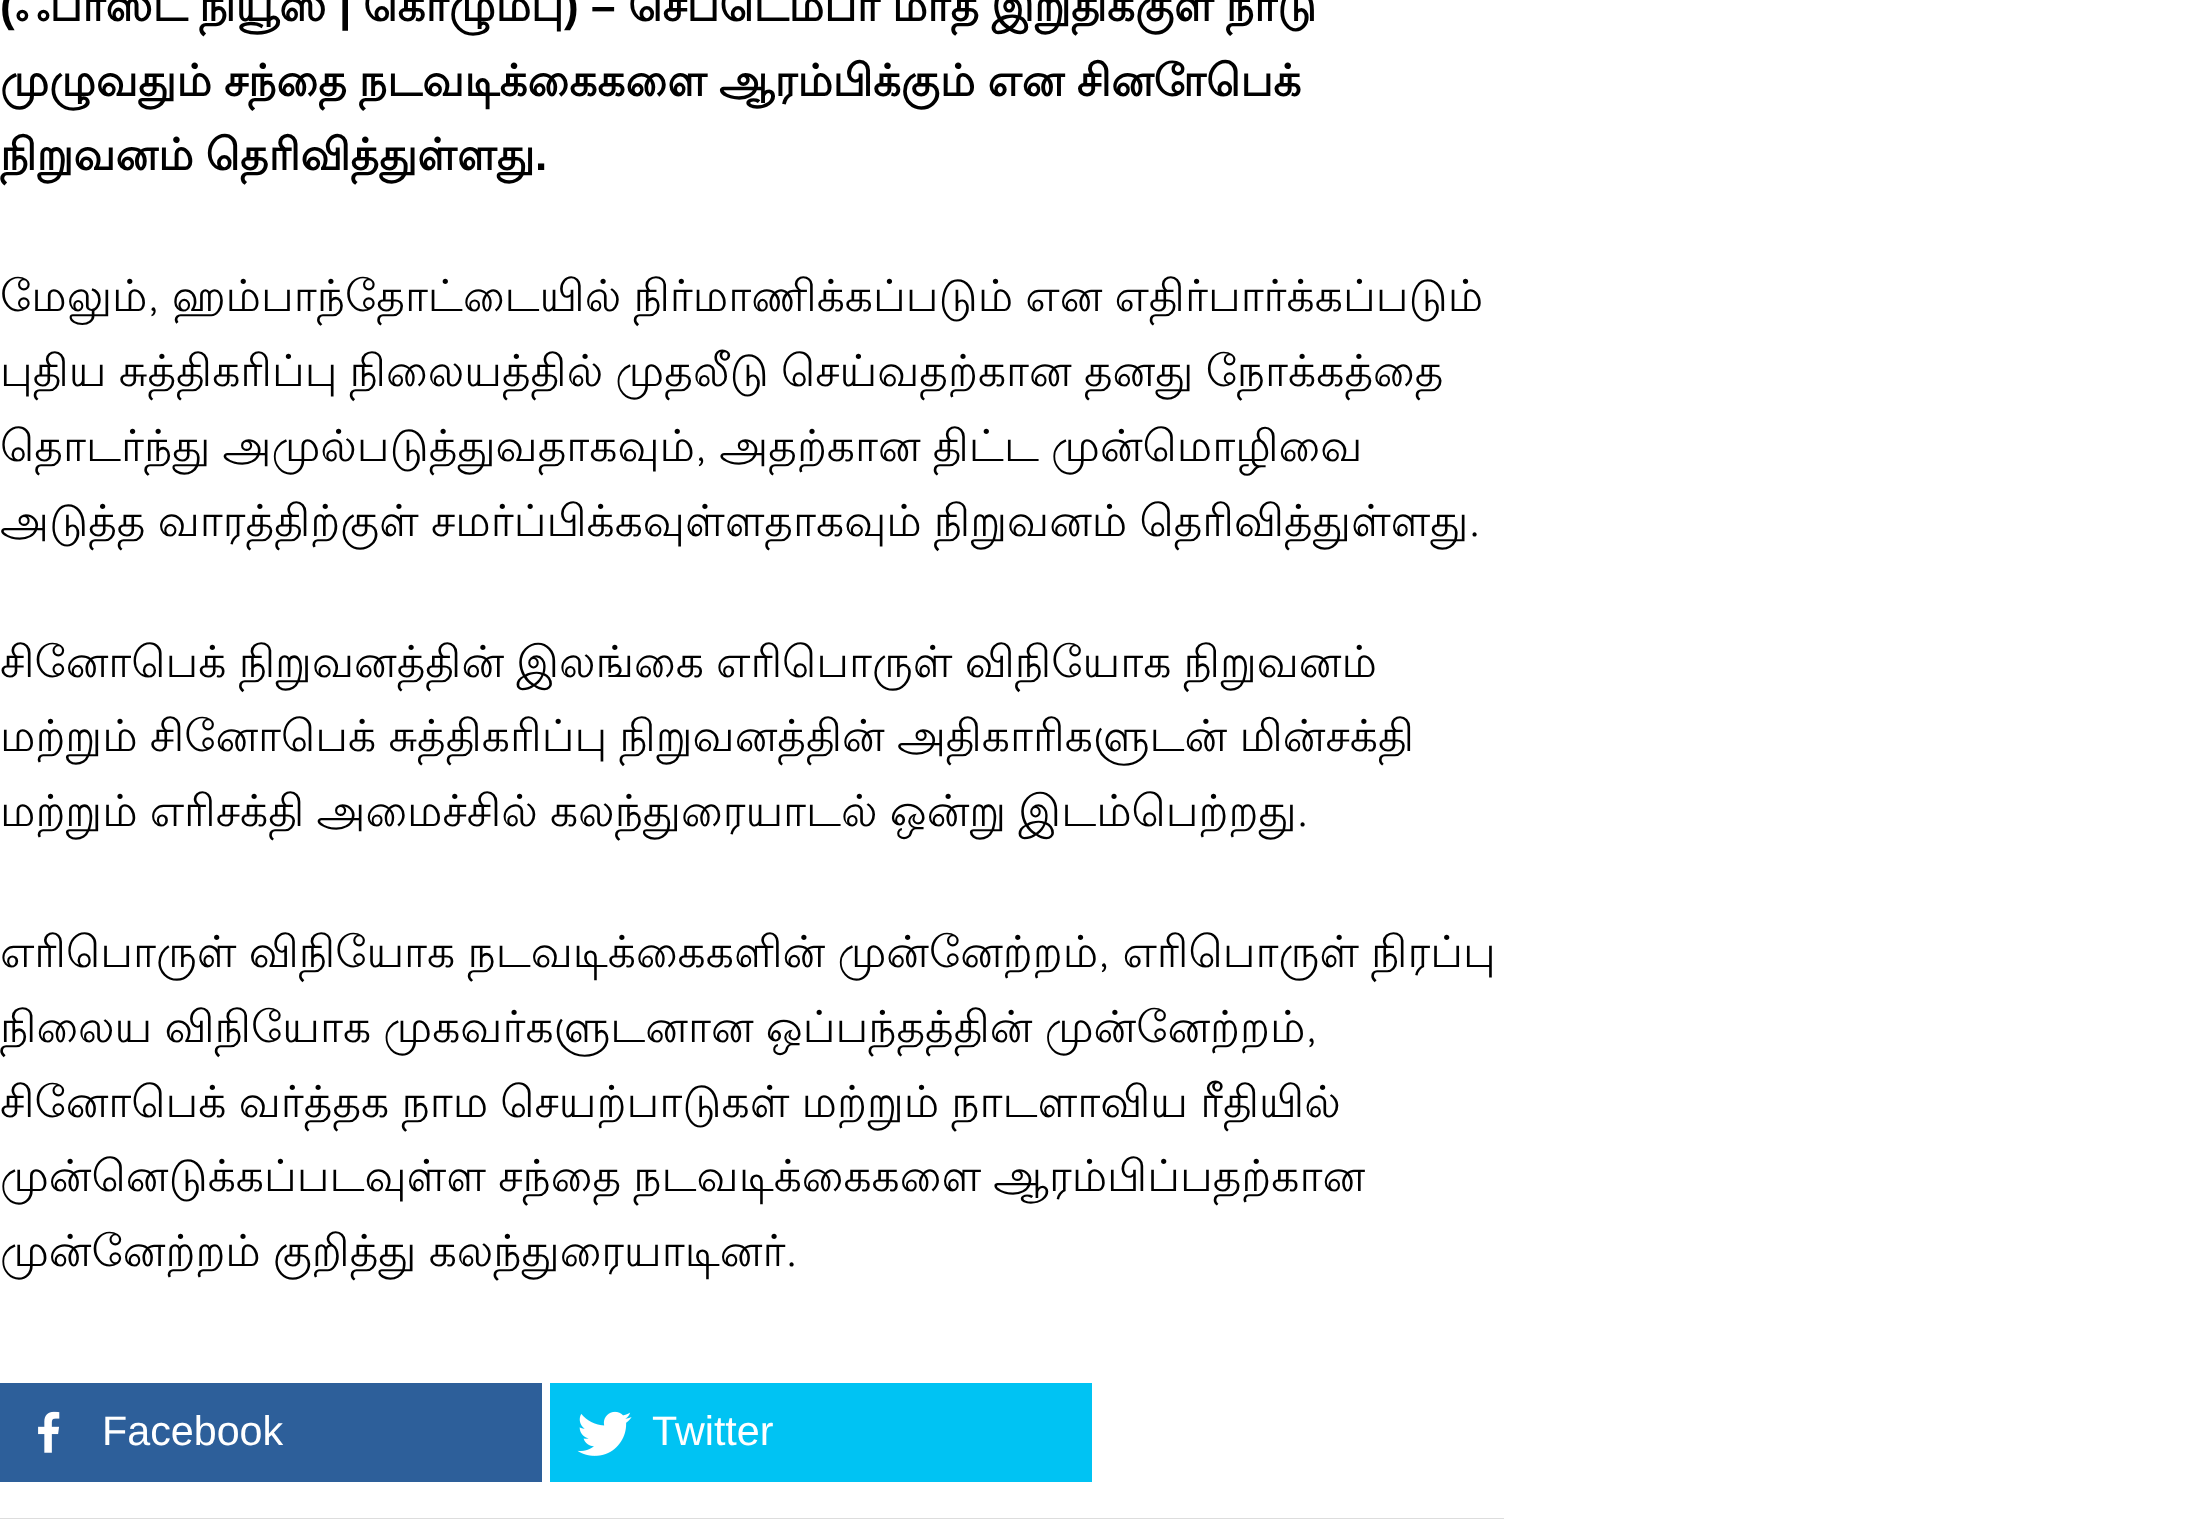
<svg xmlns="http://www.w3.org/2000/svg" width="2189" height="1519">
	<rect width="100%" height="100%" fill="#FFFFFF" />
	<rect x="0" y="1518" width="1504" height="1" fill="#DDDDDD" />
	<text x="0" y="21" font-family="Liberation Sans" font-size="44" font-weight="700" fill="#000000">(</text>
	<g font-family="Lohit Tamil" font-size="44" font-weight="700" fill="#000000">
		<text x="15" y="21">ஃபாஸ்ட்</text>
		<text x="199" y="21">நியூஸ்</text>
	</g>
	<text x="339" y="21" font-family="Liberation Sans" font-size="44" font-weight="700" fill="#000000">|</text>
	<text x="363" y="21" font-family="Lohit Tamil" font-size="44" font-weight="700" fill="#000000">கொழும்பு</text>
	<text x="564" y="21" font-family="Liberation Sans" font-size="44" font-weight="700" fill="#000000">) –</text>
	<g font-family="Lohit Tamil" font-size="44" font-weight="700" fill="#000000">
		<text x="628" y="21" word-spacing="-1">செப்டெம்பர் மாத இறுதிக்குள் நாடு</text>
		<text x="0" y="96" word-spacing="-1">முழுவதும் சந்தை நடவடிக்கைகளை ஆரம்பிக்கும் என சினோபெக்</text>
		<text x="0" y="170" word-spacing="-1">நிறுவனம் தெரிவித்துள்ளது</text>
	</g>
	<text x="535" y="170" font-family="Liberation Sans" font-size="44" font-weight="700" fill="#000000">.</text>
	<g font-family="Lohit Tamil" font-size="44" fill="#000000">
		<text x="0" y="311" word-spacing="-1">மேலும், ஹம்பாந்தோட்டையில் நிர்மாணிக்கப்படும் என எதிர்பார்க்கப்படும்</text>
		<text x="0" y="386" word-spacing="-1">புதிய சுத்திகரிப்பு நிலையத்தில் முதலீடு செய்வதற்கான தனது நோக்கத்தை</text>
		<text x="0" y="461" word-spacing="-1">தொடர்ந்து அமுல்படுத்துவதாகவும், அதற்கான திட்ட முன்மொழிவை</text>
		<text x="0" y="536" word-spacing="-1">அடுத்த வாரத்திற்குள் சமர்ப்பிக்கவுள்ளதாகவும் நிறுவனம் தெரிவித்துள்ளது.</text>
		<text x="0" y="677" word-spacing="-1">சினோபெக் நிறுவனத்தின் இலங்கை எரிபொருள் விநியோக நிறுவனம்</text>
		<text x="0" y="751" word-spacing="-1">மற்றும் சினோபெக் சுத்திகரிப்பு நிறுவனத்தின் அதிகாரிகளுடன் மின்சக்தி</text>
		<text x="0" y="826" word-spacing="-1">மற்றும் எரிசக்தி அமைச்சில் கலந்துரையாடல் ஒன்று இடம்பெற்றது.</text>
		<text x="0" y="967" word-spacing="-1">எரிபொருள் விநியோக நடவடிக்கைகளின் முன்னேற்றம், எரிபொருள் நிரப்பு</text>
		<text x="0" y="1042" word-spacing="-1">நிலைய விநியோக முகவர்களுடனான ஒப்பந்தத்தின் முன்னேற்றம்,</text>
		<text x="0" y="1117" word-spacing="-1">சினோபெக் வர்த்தக நாம செயற்பாடுகள் மற்றும் நாடளாவிய ரீதியில்</text>
		<text x="0" y="1191" word-spacing="-1">முன்னெடுக்கப்படவுள்ள சந்தை நடவடிக்கைகளை ஆரம்பிப்பதற்கான</text>
		<text x="0" y="1266" word-spacing="-1">முன்னேற்றம் குறித்து கலந்துரையாடினர்.</text>
	</g>
	<rect x="0" y="1383" width="542" height="99" fill="#2D5F9A" />
	<image x="38" y="1411" width="22" height="42" href="assets/img1.png" />
	<text x="102" y="1445" font-family="Liberation Sans" font-size="41.25" fill="#FFFFFF">Facebook</text>
	<rect x="550" y="1383" width="542" height="99" fill="#00C3F3" />
	<image x="577" y="1411" width="55" height="45" href="assets/img2.png" />
	<text x="652" y="1445" font-family="Liberation Sans" font-size="41.25" fill="#FFFFFF">Twitter</text>
</svg>
